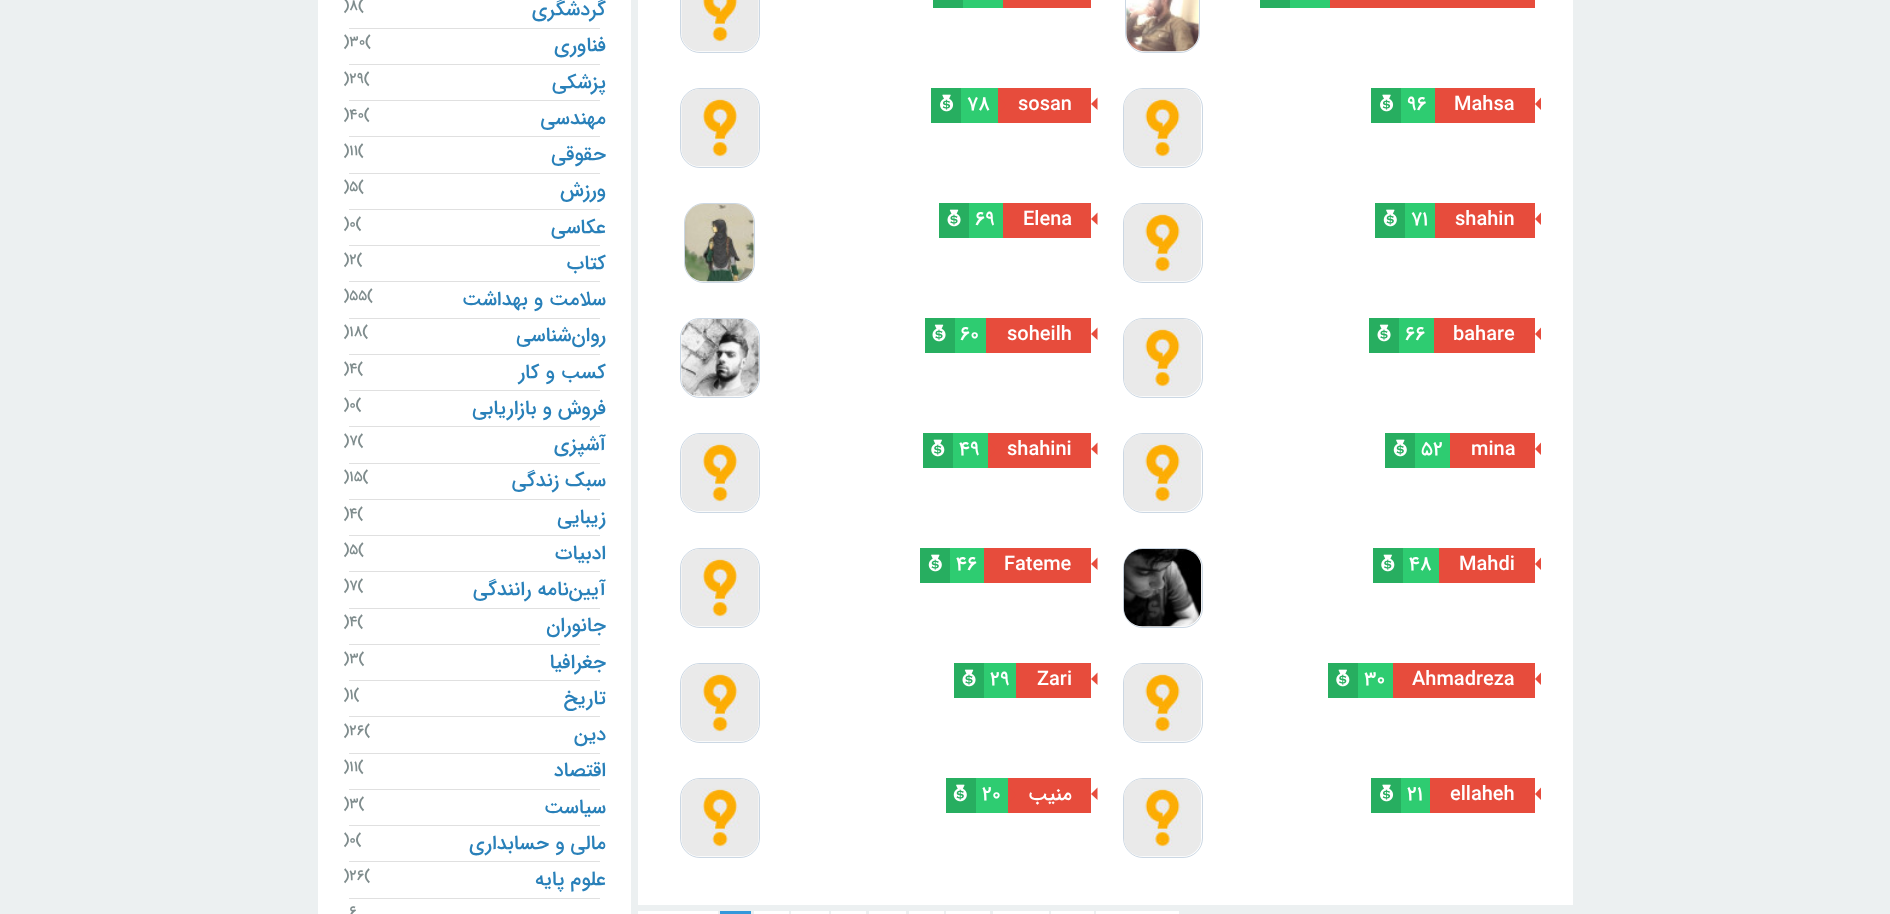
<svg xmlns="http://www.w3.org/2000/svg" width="1890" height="914">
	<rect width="100%" height="100%" fill="#ECF0F1" />
	<rect x="638" y="0" width="935" height="905" fill="#FFFFFF" />
	<rect x="1330" y="0" width="205" height="8" fill="#E74C3C" />
	<rect x="1290" y="0" width="40" height="8" fill="#2ECC71" />
	<rect x="1260" y="0" width="30" height="8" fill="#27AE60" />
	<rect x="1125.5" y="-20.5" width="74" height="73" rx="19.5" fill="none" stroke="#CBD7E3" />
	<image x="1126" y="0" width="73" height="52" href="assets/img1.png" />
	<rect x="1003" y="0" width="88" height="8" fill="#E74C3C" />
	<rect x="963" y="0" width="40" height="8" fill="#2ECC71" />
	<rect x="933" y="0" width="30" height="8" fill="#27AE60" />
	<rect x="680.5" y="-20.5" width="79" height="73" rx="19.5" fill="none" stroke="#CBD7E3" />
	<image x="681" y="0" width="78" height="52" href="assets/img2.png" />
	<rect x="1435" y="88" width="100" height="35" fill="#E74C3C" />
	<path d="M1541 97.5V110L1535 104Z" fill="#E74C3C" />
	<text x="1454" y="110" font-family="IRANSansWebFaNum" font-size="20" font-weight="500" fill="#FFFFFF">Mahsa</text>
	<rect x="1401" y="88" width="34" height="35" fill="#2ECC71" />
	<text x="1407" y="110" font-family="IRANSansWebFaNum" font-size="20" font-weight="500" fill="#FFFFFF">96</text>
	<rect x="1371" y="88" width="30" height="35" fill="#27AE60" />
	<image x="1380" y="94" width="14" height="18" href="assets/img3.png" />
	<rect x="1123.5" y="88.5" width="79" height="79" rx="19.5" fill="none" stroke="#CBD7E3" />
	<image x="1124" y="89" width="77" height="78" href="assets/img4.png" />
	<rect x="998" y="88" width="93" height="35" fill="#E74C3C" />
	<path d="M1097.5 97.5V110L1091 104Z" fill="#E74C3C" />
	<text x="1018" y="110" font-family="IRANSansWebFaNum" font-size="20" font-weight="500" fill="#FFFFFF">sosan</text>
	<path d="M997.5 114V96L1006 105Z" fill="#E74C3C" />
	<rect x="961" y="88" width="37" height="35" fill="#2ECC71" />
	<text x="967" y="110" font-family="IRANSansWebFaNum" font-size="20" font-weight="500" fill="#FFFFFF">78</text>
	<rect x="931" y="88" width="30" height="35" fill="#27AE60" />
	<image x="940" y="94" width="14" height="18" href="assets/img3.png" />
	<rect x="680.5" y="88.5" width="79" height="79" rx="19.5" fill="none" stroke="#CBD7E3" />
	<image x="681" y="89" width="78" height="78" href="assets/img5.png" />
	<rect x="1435" y="203" width="100" height="35" fill="#E74C3C" />
	<path d="M1541 212.5V225L1535 219Z" fill="#E74C3C" />
	<text x="1455" y="225" font-family="IRANSansWebFaNum" font-size="20" font-weight="500" fill="#FFFFFF">shahin</text>
	<rect x="1405" y="203" width="30" height="35" fill="#2ECC71" />
	<text x="1411" y="225" font-family="IRANSansWebFaNum" font-size="20" font-weight="500" fill="#FFFFFF">71</text>
	<rect x="1375" y="203" width="30" height="35" fill="#27AE60" />
	<image x="1383" y="209" width="14" height="18" href="assets/img6.png" />
	<rect x="1123.5" y="203.5" width="79" height="79" rx="19.5" fill="none" stroke="#CBD7E3" />
	<image x="1124" y="204" width="77" height="78" href="assets/img7.png" />
	<rect x="1003" y="203" width="88" height="35" fill="#E74C3C" />
	<path d="M1097.5 212.5V225L1091 219Z" fill="#E74C3C" />
	<text x="1023" y="225" font-family="IRANSansWebFaNum" font-size="20" font-weight="500" fill="#FFFFFF">Elena</text>
	<path d="M1002.5 229V211L1011 220Z" fill="#E74C3C" />
	<rect x="969" y="203" width="34" height="35" fill="#2ECC71" />
	<text x="975" y="225" font-family="IRANSansWebFaNum" font-size="20" font-weight="500" fill="#FFFFFF">69</text>
	<rect x="939" y="203" width="30" height="35" fill="#27AE60" />
	<image x="947" y="209" width="14" height="18" href="assets/img8.png" />
	<rect x="684.5" y="203.5" width="70" height="79" rx="19.5" fill="none" stroke="#CBD7E3" />
	<image x="685" y="204" width="69" height="78" href="assets/img9.png" />
	<rect x="1434" y="318" width="101" height="35" fill="#E74C3C" />
	<path d="M1541 327.5V340L1535 334Z" fill="#E74C3C" />
	<text x="1453" y="340" font-family="IRANSansWebFaNum" font-size="20" font-weight="500" fill="#FFFFFF">bahare</text>
	<rect x="1399" y="318" width="35" height="35" fill="#2ECC71" />
	<text x="1405" y="340" font-family="IRANSansWebFaNum" font-size="20" font-weight="500" fill="#FFFFFF">66</text>
	<rect x="1369" y="318" width="30" height="35" fill="#27AE60" />
	<image x="1377" y="324" width="14" height="18" href="assets/img8.png" />
	<rect x="1123.5" y="318.5" width="79" height="79" rx="19.5" fill="none" stroke="#CBD7E3" />
	<image x="1124" y="319" width="77" height="78" href="assets/img4.png" />
	<rect x="986" y="318" width="105" height="35" fill="#E74C3C" />
	<path d="M1097.5 327.5V340L1091 334Z" fill="#E74C3C" />
	<text x="1007" y="340" font-family="IRANSansWebFaNum" font-size="20" font-weight="500" fill="#FFFFFF">soheilh</text>
	<rect x="955" y="318" width="31" height="35" fill="#2ECC71" />
	<text x="960" y="340" font-family="IRANSansWebFaNum" font-size="20" font-weight="500" fill="#FFFFFF">60</text>
	<rect x="925" y="318" width="30" height="35" fill="#27AE60" />
	<image x="932" y="324" width="14" height="18" href="assets/img8.png" />
	<rect x="680.5" y="318.5" width="79" height="79" rx="19.5" fill="none" stroke="#CBD7E3" />
	<image x="681" y="319" width="78" height="78" href="assets/img10.png" />
	<rect x="1450" y="433" width="85" height="35" fill="#E74C3C" />
	<path d="M1541 442.5V455L1535 449Z" fill="#E74C3C" />
	<text x="1471" y="455" font-family="IRANSansWebFaNum" font-size="20" font-weight="500" fill="#FFFFFF">mina</text>
	<rect x="1415" y="433" width="35" height="35" fill="#2ECC71" />
	<text x="1421" y="455" font-family="IRANSansWebFaNum" font-size="20" font-weight="500" fill="#FFFFFF">52</text>
	<rect x="1385" y="433" width="30" height="35" fill="#27AE60" />
	<image x="1393" y="439" width="14" height="18" href="assets/img6.png" />
	<rect x="1123.5" y="433.5" width="79" height="79" rx="19.5" fill="none" stroke="#CBD7E3" />
	<image x="1124" y="434" width="77" height="78" href="assets/img4.png" />
	<rect x="988" y="433" width="103" height="35" fill="#E74C3C" />
	<path d="M1097.5 442.5V455L1091 449Z" fill="#E74C3C" />
	<text x="1007" y="455" font-family="IRANSansWebFaNum" font-size="20" font-weight="500" fill="#FFFFFF">shahini</text>
	<path d="M987.5 459V441L996 450Z" fill="#E74C3C" />
	<rect x="953" y="433" width="35" height="35" fill="#2ECC71" />
	<text x="959" y="455" font-family="IRANSansWebFaNum" font-size="20" font-weight="500" fill="#FFFFFF">49</text>
	<rect x="923" y="433" width="30" height="35" fill="#27AE60" />
	<image x="931" y="439" width="14" height="18" href="assets/img11.png" />
	<rect x="680.5" y="433.5" width="79" height="79" rx="19.5" fill="none" stroke="#CBD7E3" />
	<image x="681" y="434" width="78" height="78" href="assets/img5.png" />
	<rect x="1439" y="548" width="96" height="35" fill="#E74C3C" />
	<path d="M1541 557.5V570L1535 564Z" fill="#E74C3C" />
	<text x="1459" y="570" font-family="IRANSansWebFaNum" font-size="20" font-weight="500" fill="#FFFFFF">Mahdi</text>
	<rect x="1403" y="548" width="36" height="35" fill="#2ECC71" />
	<text x="1409" y="570" font-family="IRANSansWebFaNum" font-size="20" font-weight="500" fill="#FFFFFF">48</text>
	<rect x="1373" y="548" width="30" height="35" fill="#27AE60" />
	<image x="1381" y="554" width="14" height="18" href="assets/img11.png" />
	<rect x="1123.5" y="548.5" width="79" height="79" rx="19.5" fill="none" stroke="#CBD7E3" />
	<image x="1123" y="549" width="79" height="78" href="assets/img12.png" />
	<rect x="984" y="548" width="107" height="35" fill="#E74C3C" />
	<path d="M1097.5 557.5V570L1091 564Z" fill="#E74C3C" />
	<text x="1004" y="570" font-family="IRANSansWebFaNum" font-size="20" font-weight="500" fill="#FFFFFF">Fateme</text>
	<rect x="950" y="548" width="34" height="35" fill="#2ECC71" />
	<text x="956" y="570" font-family="IRANSansWebFaNum" font-size="20" font-weight="500" fill="#FFFFFF">46</text>
	<rect x="920" y="548" width="30" height="35" fill="#27AE60" />
	<image x="928" y="554" width="14" height="18" href="assets/img6.png" />
	<rect x="680.5" y="548.5" width="79" height="79" rx="19.5" fill="none" stroke="#CBD7E3" />
	<image x="681" y="549" width="78" height="78" href="assets/img5.png" />
	<rect x="1393" y="663" width="142" height="35" fill="#E74C3C" />
	<path d="M1541 672.5V685L1535 679Z" fill="#E74C3C" />
	<text x="1412" y="685" font-family="IRANSansWebFaNum" font-size="20" font-weight="500" fill="#FFFFFF">Ahmadreza</text>
	<path d="M1392.5 689V671L1401 680Z" fill="#E74C3C" />
	<rect x="1358" y="663" width="35" height="35" fill="#2ECC71" />
	<text x="1364" y="685" font-family="IRANSansWebFaNum" font-size="20" font-weight="500" fill="#FFFFFF">30</text>
	<rect x="1328" y="663" width="30" height="35" fill="#27AE60" />
	<image x="1336" y="669" width="14" height="18" href="assets/img11.png" />
	<rect x="1123.5" y="663.5" width="79" height="79" rx="19.5" fill="none" stroke="#CBD7E3" />
	<image x="1124" y="664" width="77" height="78" href="assets/img4.png" />
	<rect x="1016" y="663" width="75" height="35" fill="#E74C3C" />
	<path d="M1097.5 672.5V685L1091 679Z" fill="#E74C3C" />
	<text x="1037" y="685" font-family="IRANSansWebFaNum" font-size="20" font-weight="500" fill="#FFFFFF">Zari</text>
	<rect x="984" y="663" width="32" height="35" fill="#2ECC71" />
	<text x="990" y="685" font-family="IRANSansWebFaNum" font-size="20" font-weight="500" fill="#FFFFFF">29</text>
	<rect x="954" y="663" width="30" height="35" fill="#27AE60" />
	<image x="962" y="669" width="14" height="18" href="assets/img8.png" />
	<rect x="680.5" y="663.5" width="79" height="79" rx="19.5" fill="none" stroke="#CBD7E3" />
	<image x="681" y="664" width="78" height="78" href="assets/img5.png" />
	<rect x="1430" y="778" width="105" height="35" fill="#E74C3C" />
	<path d="M1541 787.5V800L1535 794Z" fill="#E74C3C" />
	<text x="1450" y="800" font-family="IRANSansWebFaNum" font-size="20" font-weight="500" fill="#FFFFFF">ellaheh</text>
	<rect x="1401" y="778" width="29" height="35" fill="#2ECC71" />
	<text x="1407" y="800" font-family="IRANSansWebFaNum" font-size="20" font-weight="500" fill="#FFFFFF">21</text>
	<rect x="1371" y="778" width="30" height="35" fill="#27AE60" />
	<image x="1380" y="784" width="14" height="18" href="assets/img3.png" />
	<rect x="1123.5" y="778.5" width="79" height="79" rx="19.5" fill="none" stroke="#CBD7E3" />
	<image x="1124" y="779" width="77" height="78" href="assets/img4.png" />
	<rect x="1008" y="778" width="83" height="35" fill="#E74C3C" />
	<path d="M1097.5 787.5V800L1091 794Z" fill="#E74C3C" />
	<text x="1072" y="800" font-family="IRANSansWebFaNum" font-size="20" font-weight="500" direction="rtl" fill="#FFFFFF">منیب</text>
	<path d="M1007.5 804V786L1016 795Z" fill="#E74C3C" />
	<rect x="976" y="778" width="32" height="35" fill="#2ECC71" />
	<text x="982" y="800" font-family="IRANSansWebFaNum" font-size="20" font-weight="500" fill="#FFFFFF">20</text>
	<rect x="946" y="778" width="30" height="35" fill="#27AE60" />
	<image x="953" y="784" width="14" height="18" href="assets/img6.png" />
	<rect x="680.5" y="778.5" width="79" height="79" rx="19.5" fill="none" stroke="#CBD7E3" />
	<image x="681" y="779" width="78" height="78" href="assets/img5.png" />
	<rect x="1096" y="911" width="83" height="3" fill="#FFFFFF" />
	<rect x="1051" y="911" width="43" height="3" fill="#FFFFFF" />
	<rect x="993" y="911" width="56" height="3" fill="#FFFFFF" />
	<rect x="946" y="911" width="44" height="3" fill="#FFFFFF" />
	<rect x="909" y="911" width="35" height="3" fill="#FFFFFF" />
	<rect x="869" y="911" width="37" height="3" fill="#FFFFFF" />
	<rect x="831" y="911" width="35" height="3" fill="#FFFFFF" />
	<rect x="791" y="911" width="38" height="3" fill="#FFFFFF" />
	<rect x="754" y="911" width="35" height="3" fill="#FFFFFF" />
	<rect x="720" y="911" width="31" height="3" fill="#3498DB" />
	<rect x="638" y="911" width="80" height="3" fill="#FFFFFF" />
	<rect x="318" y="0" width="313" height="914" fill="#FFFFFF" />
	<rect x="349" y="28" width="251" height="1" fill="#E0E0E0" />
	<text x="606" y="15" font-family="IRANSansWebFaNum" font-size="20" font-weight="500" direction="rtl" fill="#2980B9">گردشگری</text>
	<text x="343" y="10" font-family="IRANSansWebFaNum" font-size="15" font-weight="500" fill="#7F8C8D">)8(</text>
	<rect x="349" y="64" width="251" height="1" fill="#E0E0E0" />
	<text x="606" y="51" font-family="IRANSansWebFaNum" font-size="20" font-weight="500" direction="rtl" fill="#2980B9">فناوری</text>
	<text x="343" y="46" font-family="IRANSansWebFaNum" font-size="15" font-weight="500" fill="#7F8C8D">)30(</text>
	<rect x="349" y="100" width="251" height="1" fill="#E0E0E0" />
	<text x="606" y="88" font-family="IRANSansWebFaNum" font-size="20" font-weight="500" direction="rtl" fill="#2980B9">پزشکی</text>
	<text x="343" y="83" font-family="IRANSansWebFaNum" font-size="15" font-weight="500" fill="#7F8C8D">)29(</text>
	<rect x="349" y="136" width="251" height="1" fill="#E0E0E0" />
	<text x="606" y="124" font-family="IRANSansWebFaNum" font-size="20" font-weight="500" direction="rtl" fill="#2980B9">مهندسی</text>
	<text x="343" y="119" font-family="IRANSansWebFaNum" font-size="15" font-weight="500" fill="#7F8C8D">)40(</text>
	<rect x="349" y="173" width="251" height="1" fill="#E0E0E0" />
	<text x="606" y="160" font-family="IRANSansWebFaNum" font-size="20" font-weight="500" direction="rtl" fill="#2980B9">حقوقی</text>
	<text x="343" y="155" font-family="IRANSansWebFaNum" font-size="15" font-weight="500" fill="#7F8C8D">)11(</text>
	<rect x="349" y="209" width="251" height="1" fill="#E0E0E0" />
	<text x="606" y="196" font-family="IRANSansWebFaNum" font-size="20" font-weight="500" direction="rtl" fill="#2980B9">ورزش</text>
	<text x="343" y="191" font-family="IRANSansWebFaNum" font-size="15" font-weight="500" fill="#7F8C8D">)5(</text>
	<rect x="349" y="245" width="251" height="1" fill="#E0E0E0" />
	<text x="606" y="233" font-family="IRANSansWebFaNum" font-size="20" font-weight="500" direction="rtl" fill="#2980B9">عکاسی</text>
	<text x="343" y="228" font-family="IRANSansWebFaNum" font-size="15" font-weight="500" fill="#7F8C8D">)0(</text>
	<rect x="349" y="281" width="251" height="1" fill="#E0E0E0" />
	<text x="606" y="269" font-family="IRANSansWebFaNum" font-size="20" font-weight="500" direction="rtl" fill="#2980B9">کتاب</text>
	<text x="343" y="264" font-family="IRANSansWebFaNum" font-size="15" font-weight="500" fill="#7F8C8D">)2(</text>
	<rect x="349" y="318" width="251" height="1" fill="#E0E0E0" />
	<text x="606" y="305" font-family="IRANSansWebFaNum" font-size="20" font-weight="500" direction="rtl" fill="#2980B9">سلامت و بهداشت</text>
	<text x="343" y="300" font-family="IRANSansWebFaNum" font-size="15" font-weight="500" fill="#7F8C8D">)55(</text>
	<rect x="349" y="354" width="251" height="1" fill="#E0E0E0" />
	<text x="606" y="341" font-family="IRANSansWebFaNum" font-size="20" font-weight="500" direction="rtl" fill="#2980B9">روان‌شناسی</text>
	<text x="343" y="336" font-family="IRANSansWebFaNum" font-size="15" font-weight="500" fill="#7F8C8D">)18(</text>
	<rect x="349" y="390" width="251" height="1" fill="#E0E0E0" />
	<text x="606" y="378" font-family="IRANSansWebFaNum" font-size="20" font-weight="500" direction="rtl" fill="#2980B9">کسب و کار</text>
	<text x="343" y="373" font-family="IRANSansWebFaNum" font-size="15" font-weight="500" fill="#7F8C8D">)4(</text>
	<rect x="349" y="426" width="251" height="1" fill="#E0E0E0" />
	<text x="606" y="414" font-family="IRANSansWebFaNum" font-size="20" font-weight="500" direction="rtl" fill="#2980B9">فروش و بازاریابی</text>
	<text x="343" y="409" font-family="IRANSansWebFaNum" font-size="15" font-weight="500" fill="#7F8C8D">)0(</text>
	<rect x="349" y="463" width="251" height="1" fill="#E0E0E0" />
	<text x="606" y="450" font-family="IRANSansWebFaNum" font-size="20" font-weight="500" direction="rtl" fill="#2980B9">آشپزی</text>
	<text x="343" y="445" font-family="IRANSansWebFaNum" font-size="15" font-weight="500" fill="#7F8C8D">)7(</text>
	<rect x="349" y="499" width="251" height="1" fill="#E0E0E0" />
	<text x="606" y="486" font-family="IRANSansWebFaNum" font-size="20" font-weight="500" direction="rtl" fill="#2980B9">سبک زندگی</text>
	<text x="343" y="481" font-family="IRANSansWebFaNum" font-size="15" font-weight="500" fill="#7F8C8D">)15(</text>
	<rect x="349" y="535" width="251" height="1" fill="#E0E0E0" />
	<text x="606" y="523" font-family="IRANSansWebFaNum" font-size="20" font-weight="500" direction="rtl" fill="#2980B9">زیبایی</text>
	<text x="343" y="518" font-family="IRANSansWebFaNum" font-size="15" font-weight="500" fill="#7F8C8D">)4(</text>
	<rect x="349" y="571" width="251" height="1" fill="#E0E0E0" />
	<text x="606" y="559" font-family="IRANSansWebFaNum" font-size="20" font-weight="500" direction="rtl" fill="#2980B9">ادبیات</text>
	<text x="343" y="554" font-family="IRANSansWebFaNum" font-size="15" font-weight="500" fill="#7F8C8D">)5(</text>
	<rect x="349" y="608" width="251" height="1" fill="#E0E0E0" />
	<text x="606" y="595" font-family="IRANSansWebFaNum" font-size="20" font-weight="500" direction="rtl" fill="#2980B9">آیین‌نامه رانندگی</text>
	<text x="343" y="590" font-family="IRANSansWebFaNum" font-size="15" font-weight="500" fill="#7F8C8D">)7(</text>
	<rect x="349" y="644" width="251" height="1" fill="#E0E0E0" />
	<text x="606" y="631" font-family="IRANSansWebFaNum" font-size="20" font-weight="500" direction="rtl" fill="#2980B9">جانوران</text>
	<text x="343" y="626" font-family="IRANSansWebFaNum" font-size="15" font-weight="500" fill="#7F8C8D">)4(</text>
	<rect x="349" y="680" width="251" height="1" fill="#E0E0E0" />
	<text x="606" y="668" font-family="IRANSansWebFaNum" font-size="20" font-weight="500" direction="rtl" fill="#2980B9">جغرافیا</text>
	<text x="343" y="663" font-family="IRANSansWebFaNum" font-size="15" font-weight="500" fill="#7F8C8D">)3(</text>
	<rect x="349" y="716" width="251" height="1" fill="#E0E0E0" />
	<text x="606" y="704" font-family="IRANSansWebFaNum" font-size="20" font-weight="500" direction="rtl" fill="#2980B9">تاریخ</text>
	<text x="343" y="699" font-family="IRANSansWebFaNum" font-size="15" font-weight="500" fill="#7F8C8D">)1(</text>
	<rect x="349" y="753" width="251" height="1" fill="#E0E0E0" />
	<text x="606" y="740" font-family="IRANSansWebFaNum" font-size="20" font-weight="500" direction="rtl" fill="#2980B9">دین</text>
	<text x="343" y="735" font-family="IRANSansWebFaNum" font-size="15" font-weight="500" fill="#7F8C8D">)26(</text>
	<rect x="349" y="789" width="251" height="1" fill="#E0E0E0" />
	<text x="606" y="776" font-family="IRANSansWebFaNum" font-size="20" font-weight="500" direction="rtl" fill="#2980B9">اقتصاد</text>
	<text x="343" y="771" font-family="IRANSansWebFaNum" font-size="15" font-weight="500" fill="#7F8C8D">)11(</text>
	<rect x="349" y="825" width="251" height="1" fill="#E0E0E0" />
	<text x="606" y="813" font-family="IRANSansWebFaNum" font-size="20" font-weight="500" direction="rtl" fill="#2980B9">سیاست</text>
	<text x="343" y="808" font-family="IRANSansWebFaNum" font-size="15" font-weight="500" fill="#7F8C8D">)3(</text>
	<rect x="349" y="861" width="251" height="1" fill="#E0E0E0" />
	<text x="606" y="849" font-family="IRANSansWebFaNum" font-size="20" font-weight="500" direction="rtl" fill="#2980B9">مالی و حسابداری</text>
	<text x="343" y="844" font-family="IRANSansWebFaNum" font-size="15" font-weight="500" fill="#7F8C8D">)0(</text>
	<rect x="349" y="898" width="251" height="1" fill="#E0E0E0" />
	<text x="606" y="885" font-family="IRANSansWebFaNum" font-size="20" font-weight="500" direction="rtl" fill="#2980B9">علوم پایه</text>
	<g font-family="IRANSansWebFaNum" font-size="15" font-weight="500" fill="#7F8C8D">
		<text x="343" y="880">)26(</text>
		<text x="349" y="916">6</text>
	</g>
</svg>
